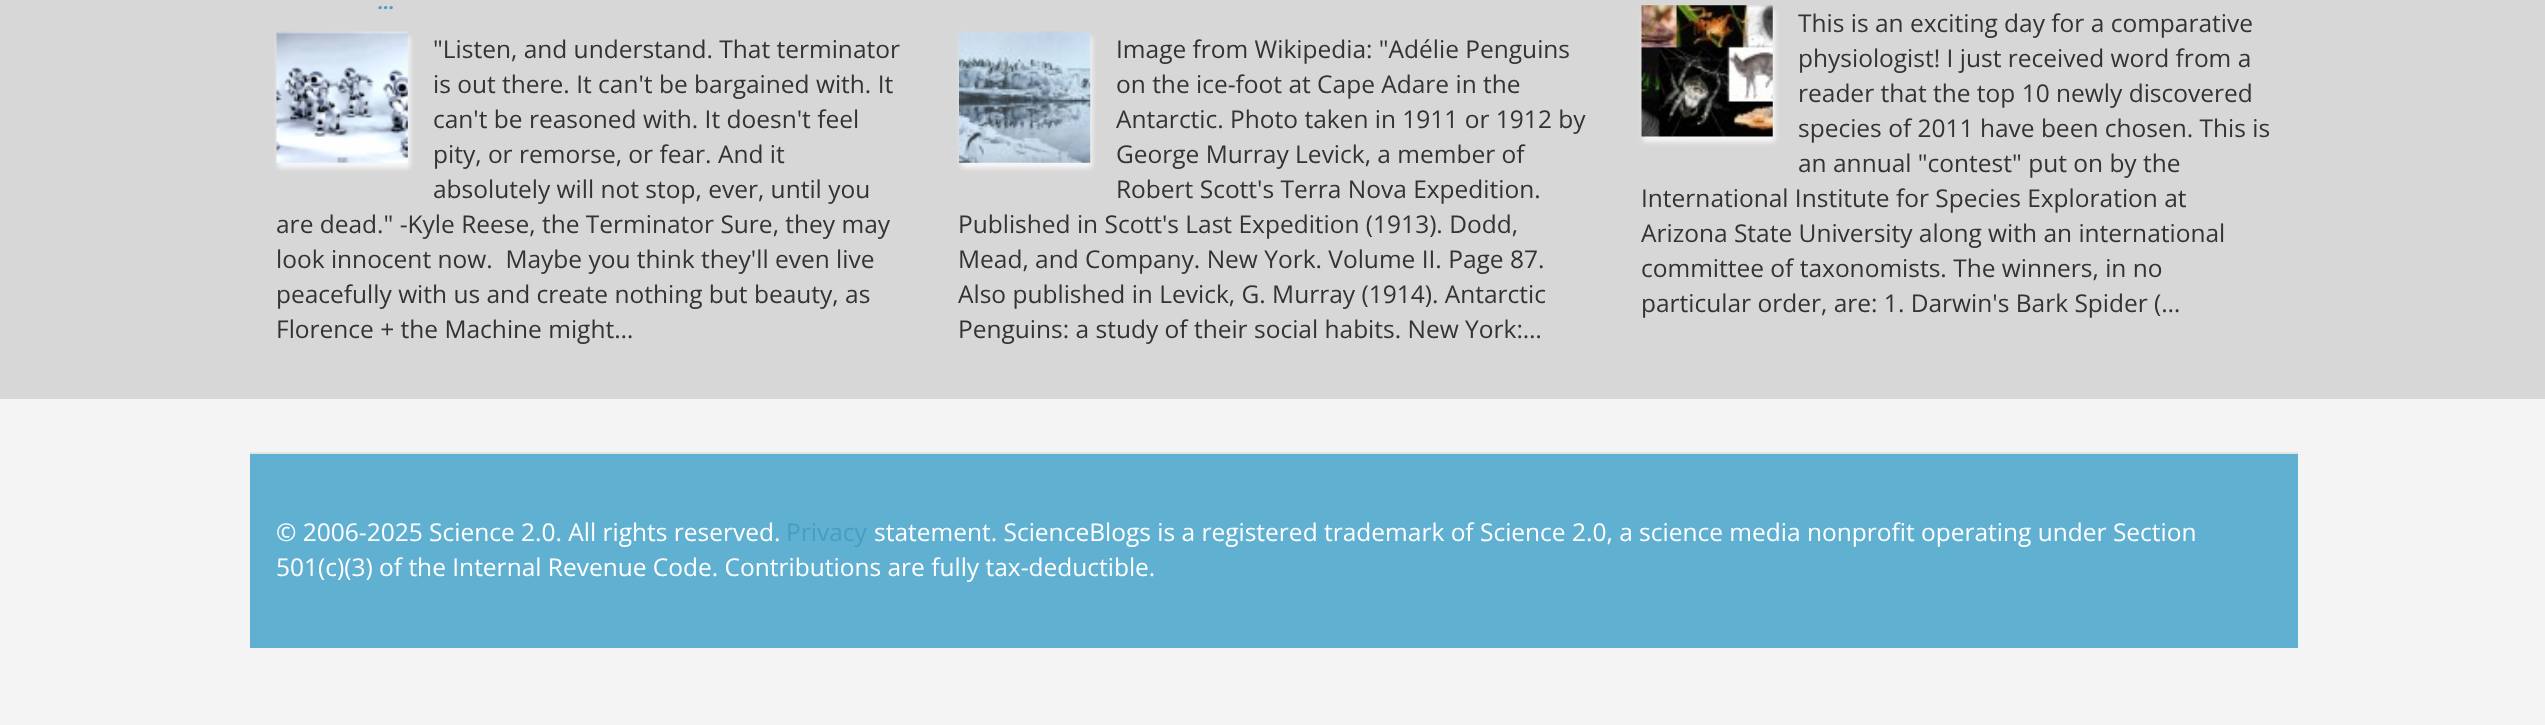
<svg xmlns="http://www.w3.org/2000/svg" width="2545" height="725">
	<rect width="100%" height="100%" fill="#F4F4F4" />
	<rect x="0" y="0" width="2545" height="399" fill="#D7D7D7" />
	<text x="377" y="9" font-family="Merriweather" font-size="24.5" fill="#479DC2">...</text>
	<rect x="278" y="37" width="132" height="131" fill="#F7F7F7" filter="blur(2.5px)" />
	<image x="276" y="31" width="132" height="132" href="assets/img1.png" />
	<g font-family="Open Sans" font-size="24.5" fill="#333333">
		<text x="433" y="58">"Listen, and understand. That terminator</text>
		<text x="433" y="93">is out there. It can't be bargained with. It</text>
		<text x="433" y="128">can't be reasoned with. It doesn't feel</text>
		<text x="433" y="163">pity, or remorse, or fear. And it</text>
		<text x="433" y="198">absolutely will not stop, ever, until you</text>
		<text x="276" y="233">are dead." -Kyle Reese, the Terminator Sure, they may</text>
		<text x="276" y="268" xml:space="preserve">look innocent now.  Maybe you think they'll even live</text>
		<text x="276" y="303">peacefully with us and create nothing but beauty, as</text>
		<text x="276" y="338">Florence + the Machine might…</text>
	</g>
	<rect x="961" y="37" width="131" height="131" fill="#F7F7F7" filter="blur(2.5px)" />
	<image x="959" y="31" width="132" height="132" href="assets/img2.png" />
	<g font-family="Open Sans" font-size="24.5" fill="#333333">
		<text x="1116" y="58">Image from Wikipedia: "Adélie Penguins</text>
		<text x="1116" y="93">on the ice-foot at Cape Adare in the</text>
		<text x="1116" y="128">Antarctic. Photo taken in 1911 or 1912 by</text>
		<text x="1116" y="163">George Murray Levick, a member of</text>
		<text x="1116" y="198">Robert Scott's Terra Nova Expedition.</text>
		<text x="958" y="233">Published in Scott's Last Expedition (1913). Dodd,</text>
		<text x="958" y="268">Mead, and Company. New York. Volume II. Page 87.</text>
		<text x="958" y="303">Also published in Levick, G. Murray (1914). Antarctic</text>
		<text x="958" y="338">Penguins: a study of their social habits. New York:…</text>
	</g>
	<rect x="1643" y="11" width="132" height="131" fill="#F7F7F7" filter="blur(2.5px)" />
	<image x="1641" y="5" width="132" height="132" href="assets/img3.png" />
	<g font-family="Open Sans" font-size="24.5" fill="#333333">
		<text x="1798" y="32">This is an exciting day for a comparative</text>
		<text x="1798" y="67">physiologist! I just received word from a</text>
		<text x="1798" y="102">reader that the top 10 newly discovered</text>
		<text x="1798" y="137">species of 2011 have been chosen. This is</text>
		<text x="1798" y="172">an annual "contest" put on by the</text>
		<text x="1641" y="207">International Institute for Species Exploration at</text>
		<text x="1641" y="242">Arizona State University along with an international</text>
		<text x="1641" y="277">committee of taxonomists. The winners, in no</text>
		<text x="1641" y="312">particular order, are: 1. Darwin's Bark Spider (…</text>
	</g>
	<rect x="250" y="454" width="2048" height="194" fill="#60B0D2" />
	<rect x="250" y="452" width="2048" height="2" fill="#E5E5E5" />
	<text x="276" y="541" font-family="Open Sans" font-size="24.5" fill="#FFFFFF">© 2006-2025 Science 2.0. All rights reserved.</text>
	<text x="786" y="541" font-family="Open Sans" font-size="24.5" fill="#479DC2">Privacy</text>
	<g font-family="Open Sans" font-size="24.5" fill="#FFFFFF">
		<text x="874" y="541">statement. ScienceBlogs is a registered trademark of Science 2.0, a science media nonprofit operating under Section</text>
		<text x="276" y="576">501(c)(3) of the Internal Revenue Code. Contributions are fully tax-deductible.</text>
	</g>
</svg>
